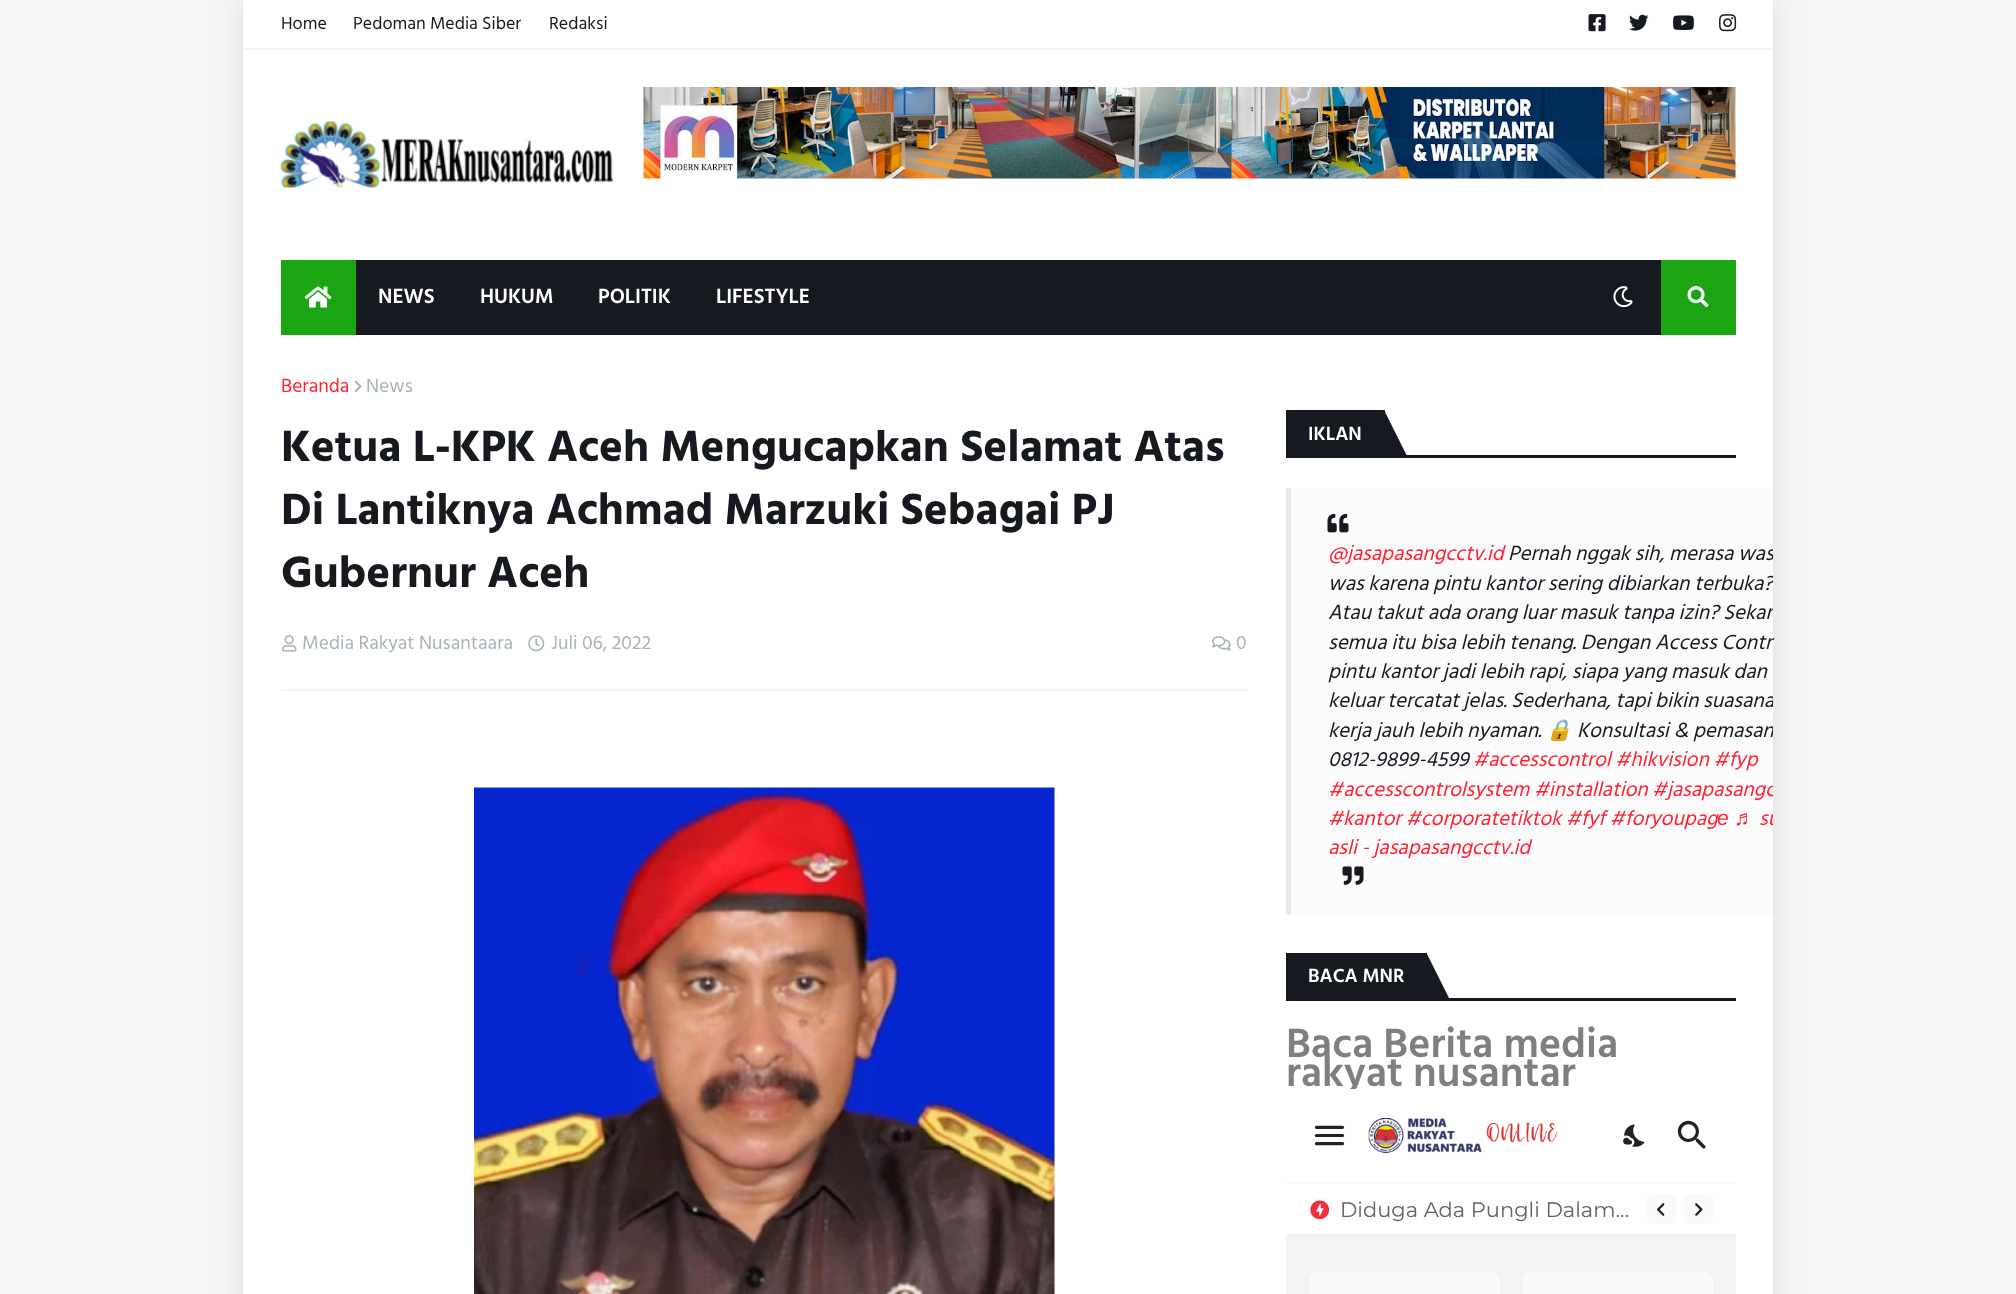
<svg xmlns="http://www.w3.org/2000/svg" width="2016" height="1294">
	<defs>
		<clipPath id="clip1"><rect x="243" y="335" width="1530" height="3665" /></clipPath>
	</defs>
	<rect width="100%" height="100%" fill="#F5F6F7" />
	<rect x="243" y="0" width="1530" height="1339" fill="#000000" fill-opacity="0.1" filter="blur(15px)" />
	<rect x="243" y="0" width="1530" height="1294" fill="#FFFFFF" />
	<rect x="243" y="48" width="1530" height="2" fill="#F5F5F5" />
	<g font-family="Hind Siliguri" font-size="18" fill="#171921">
		<text x="281" y="29">Home</text>
		<text x="353" y="29">Pedoman Media Siber</text>
		<text x="549" y="29">Redaksi</text>
	</g>
	<image x="1588" y="14" width="18" height="18" href="assets/img1.png" />
	<image x="1629" y="14" width="20" height="17" href="assets/img2.png" />
	<image x="1673" y="15" width="21" height="15" href="assets/img3.png" />
	<image x="1719" y="14" width="18" height="18" href="assets/img4.png" />
	<image x="280" y="121" width="334" height="67" href="assets/img5.png" />
	<image x="643" y="87" width="1093" height="92" href="assets/img6.png" />
	<rect x="356" y="260" width="1305" height="75" fill="#171921" />
	<rect x="281" y="260" width="75" height="75" fill="#1BA512" />
	<image x="304" y="286" width="28" height="22" href="assets/img7.png" />
	<g font-family="Hind Siliguri" font-size="21" font-weight="600" fill="#FFFFFF">
		<text x="378" y="303">NEWS</text>
		<text x="480" y="303">HUKUM</text>
		<text x="598" y="303">POLITIK</text>
		<text x="716" y="303">LIFESTYLE</text>
	</g>
	<image x="1613" y="286" width="20" height="22" href="assets/img8.png" />
	<rect x="1661" y="260" width="75" height="75" fill="#1BA512" />
	<image x="1687" y="286" width="22" height="22" href="assets/img9.png" />
	<rect x="281" y="689" width="967" height="2" fill="#F5F5F5" />
	<text x="281" y="392" font-family="Hind Siliguri" font-size="19.5" fill="#FF2232">Beranda</text>
	<image x="354" y="380" width="8" height="13" href="assets/img10.png" />
	<text x="366" y="392" font-family="Hind Siliguri" font-size="19.5" fill="#A9B4BA">News</text>
	<g font-family="Hind Siliguri" font-size="45" font-weight="700" fill="#171921">
		<text x="281" y="461">Ketua L-KPK Aceh Mengucapkan Selamat Atas</text>
		<text x="281" y="524">Di Lantiknya Achmad Marzuki Sebagai PJ</text>
		<text x="281" y="587">Gubernur Aceh</text>
	</g>
	<image x="282" y="635" width="15" height="17" href="assets/img11.png" />
	<text x="302" y="649" font-family="Hind Siliguri" font-size="19.5" fill="#A9B4BA">Media Rakyat Nusantaara</text>
	<image x="528" y="635" width="17" height="17" href="assets/img12.png" />
	<text x="551" y="649" font-family="Hind Siliguri" font-size="19.5" fill="#A9B4BA">Juli 06, 2022</text>
	<image x="1212" y="636" width="19" height="15" href="assets/img13.png" />
	<text x="1236" y="649" font-family="Hind Siliguri" font-size="19.5" fill="#A9B4BA">0</text>
	<image x="474" y="787" width="581" height="507" href="assets/img14.png" />
	<rect x="1406" y="455" width="330" height="3" fill="#171921" />
	<rect x="1286" y="410" width="99" height="48" fill="#171921" />
	<text x="1308" y="440" font-family="Hind Siliguri" font-size="19.5" font-weight="600" fill="#FFFFFF">IKLAN</text>
	<path d="M1384 458V410L1408 458Z" fill="#171921" />
	<rect x="1291" y="488" width="482" height="427" fill="#FBFBFB" />
	<rect x="1286" y="488" width="5" height="427" fill="#E8E8E8" />
	<image x="1327" y="513" width="22" height="20" href="assets/img15.png" />
	<text x="1328" y="560" font-family="Hind Siliguri" font-size="21" font-style="italic" fill="#FF2232">@jasapasangcctv.id</text>
	<g clip-path="url(#clip1)">
		<g font-family="Hind Siliguri" font-size="21" font-style="italic" fill="#171921">
			<text x="1508" y="560">Pernah nggak sih, merasa was</text>
			<text x="1328" y="590">was karena pintu kantor sering dibiarkan terbuka?</text>
		</g>
	</g>
	<text x="1328" y="619" font-family="Hind Siliguri" font-size="21" font-style="italic" fill="#171921">Atau takut ada orang luar masuk tanpa izin?</text>
	<g clip-path="url(#clip1)">
		<text x="1723" y="619" font-family="Hind Siliguri" font-size="21" font-style="italic" fill="#171921">Sekar</text>
	</g>
	<g font-family="Hind Siliguri" font-size="21" font-style="italic" fill="#171921">
		<text x="1328" y="649">semua itu bisa lebih tenang. Dengan Access Contr</text>
		<text x="1328" y="678">pintu kantor jadi lebih rapi, siapa yang masuk dan</text>
		<text x="1328" y="707">keluar tercatat jelas.</text>
	</g>
	<g clip-path="url(#clip1)">
		<text x="1511" y="707" font-family="Hind Siliguri" font-size="21" font-style="italic" fill="#171921">Sederhana, tapi bikin suasana</text>
	</g>
	<text x="1328" y="737" font-family="Hind Siliguri" font-size="21" font-style="italic" fill="#171921">kerja jauh lebih nyaman.</text>
	<text x="1546" y="737" font-family="Noto Color Emoji" font-size="21" font-style="italic" fill="#171921">🔒</text>
	<g clip-path="url(#clip1)">
		<text x="1577" y="737" font-family="Hind Siliguri" font-size="21" font-style="italic" fill="#171921">Konsultasi &amp; pemasan</text>
	</g>
	<text x="1328" y="766" font-family="Hind Siliguri" font-size="21" font-style="italic" fill="#171921">0812-9899-4599</text>
	<g font-family="Hind Siliguri" font-size="21" font-style="italic" fill="#FF2232">
		<text x="1473" y="766">#accesscontrol #hikvision #fyp</text>
		<text x="1328" y="796">#accesscontrolsystem #installation</text>
	</g>
	<g clip-path="url(#clip1)">
		<text x="1652" y="796" font-family="Hind Siliguri" font-size="21" font-style="italic" fill="#FF2232">#jasapasangc</text>
	</g>
	<text x="1328" y="825" font-family="Hind Siliguri" font-size="21" font-style="italic" fill="#FF2232">#kantor #corporatetiktok #fyf #foryoupag</text>
	<g font-family="Liberation Sans" font-size="21" font-style="italic" fill="#FF2232">
		<text x="1717" y="825">е</text>
		<text x="1734" y="825">♬</text>
	</g>
	<g clip-path="url(#clip1)">
		<text x="1759" y="825" font-family="Hind Siliguri" font-size="21" font-style="italic" fill="#FF2232">su</text>
	</g>
	<text x="1328" y="854" font-family="Hind Siliguri" font-size="21" font-style="italic" fill="#FF2232">asli - jasapasangcctv.id</text>
	<image x="1342" y="866" width="22" height="19" href="assets/img16.png" />
	<rect x="1427" y="998" width="309" height="3" fill="#171921" />
	<rect x="1286" y="953" width="141" height="48" fill="#171921" />
	<text x="1308" y="982" font-family="Hind Siliguri" font-size="19.5" font-weight="600" fill="#FFFFFF">BACA MNR</text>
	<path d="M1426 1000V952L1450 1000Z" fill="#171921" />
	<g font-family="Hind Siliguri" font-size="42" font-weight="600" fill="#7F7F7F">
		<text x="1286" y="1057">Baca Berita media</text>
		<text x="1286" y="1086">rakyat nusantar</text>
	</g>
	<image x="1286" y="1089" width="450" height="205" href="assets/img17.png" />
</svg>
